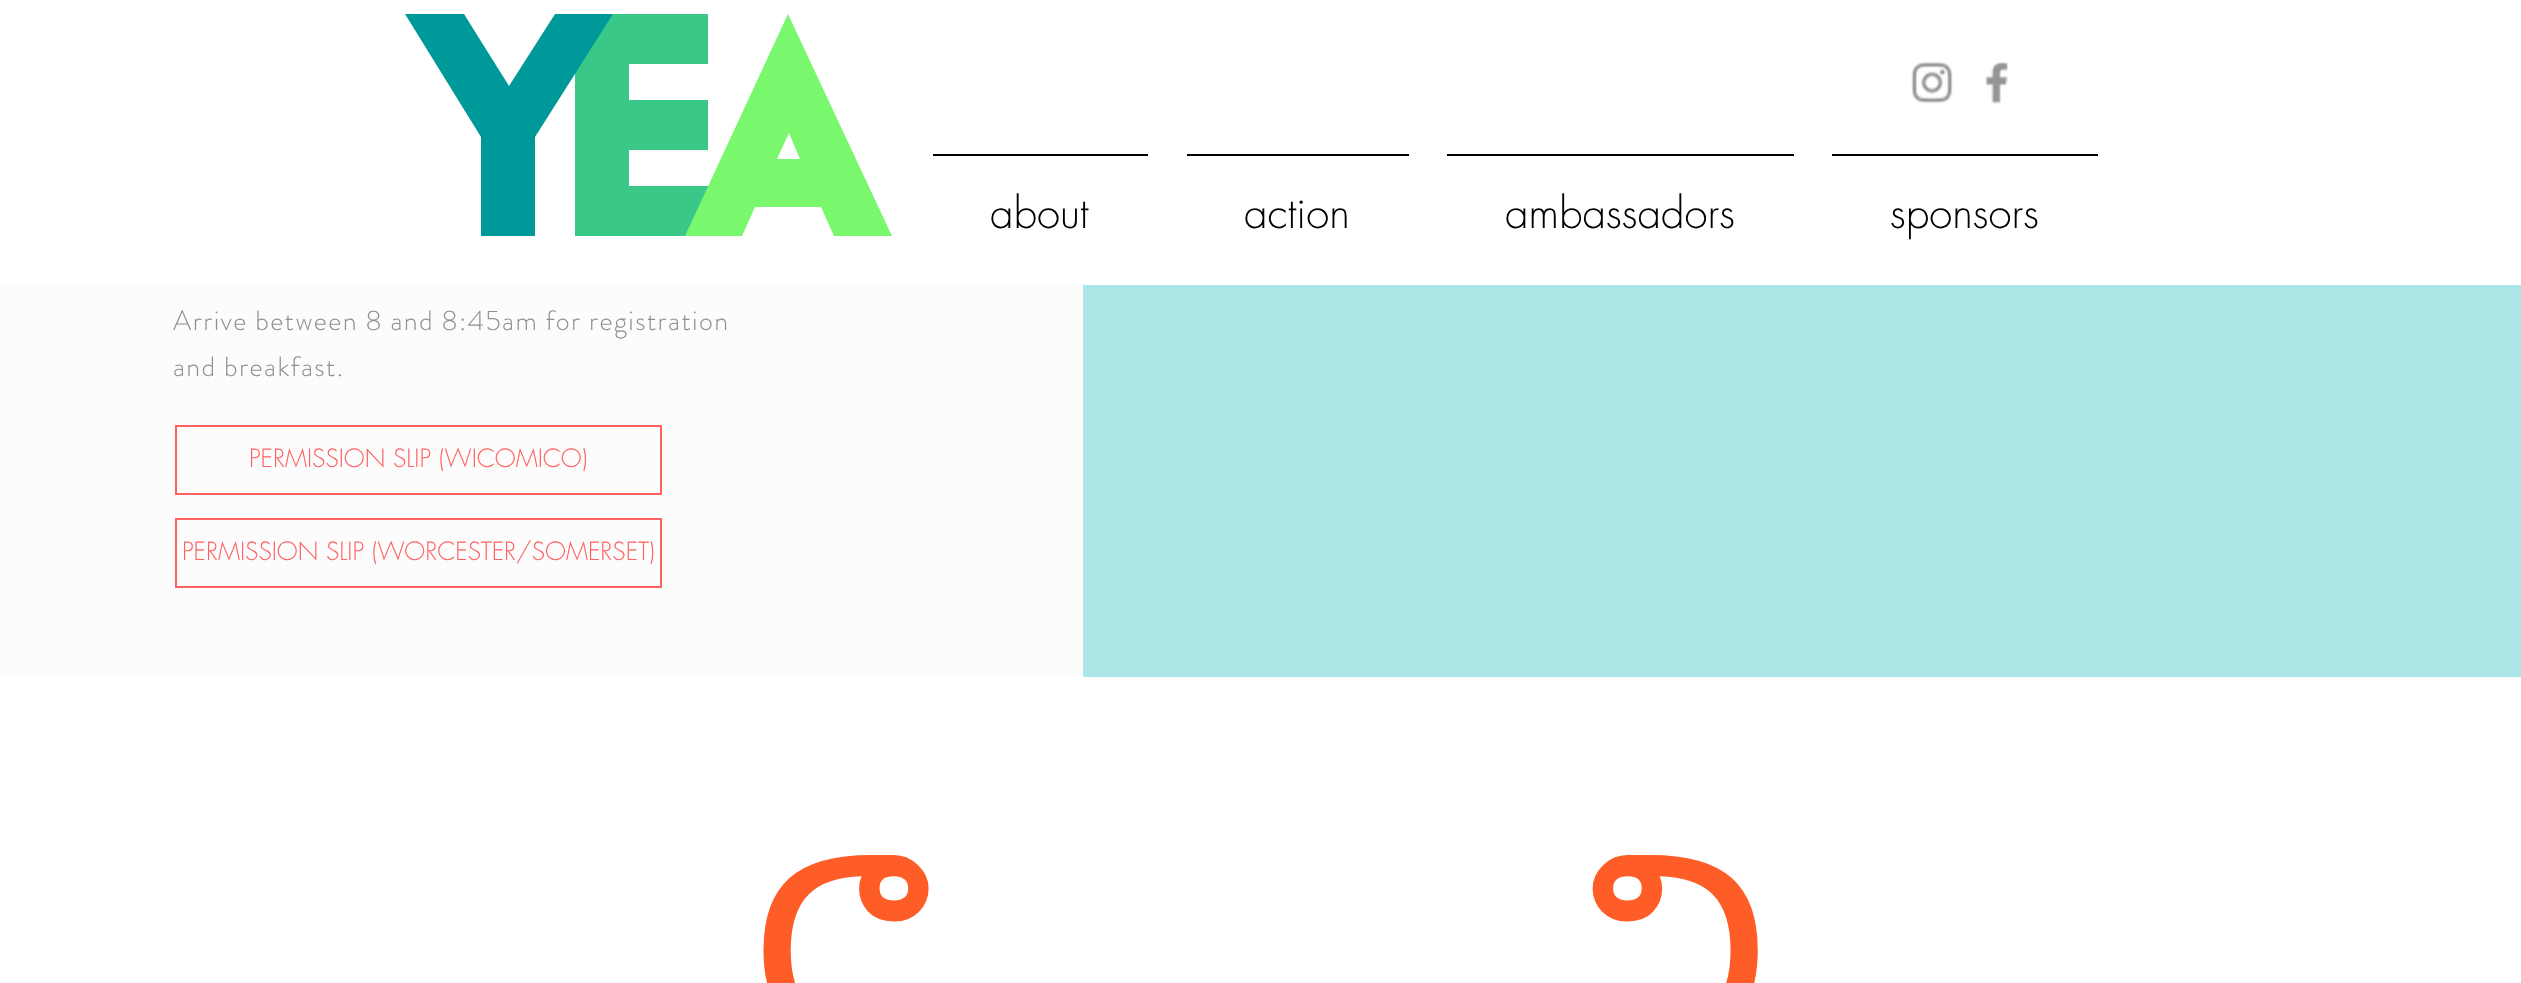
<svg xmlns="http://www.w3.org/2000/svg" width="2521" height="983">
	<rect width="100%" height="100%" fill="#FFFFFF" />
	<path d="M575 14V236H708V186H629V150H708V100H629V64H708V14Z" fill="#3AC888" />
	<path d="M788 14L685 236H742L755 207H821L834 236H892ZM789 133L800 159H777Z" fill="#79F76D" />
	<path d="M405 14L481 137V236H535V137L613 14H555L509 86L464 14Z" fill="#009999" />
	<image x="1911" y="61" width="43" height="43" href="assets/img1.png" />
	<image x="1985" y="61" width="23" height="43" href="assets/img2.png" />
	<rect x="933" y="154" width="215" height="2" fill="#000000" />
	<text x="990" y="228" font-family="futura" font-size="42" font-weight="300" fill="#000000">about</text>
	<rect x="1187" y="154" width="222" height="2" fill="#000000" />
	<text x="1244" y="228" font-family="futura" font-size="42" font-weight="300" fill="#000000">action</text>
	<rect x="1447" y="154" width="347" height="2" fill="#000000" />
	<text x="1505" y="228" font-family="futura" font-size="42" font-weight="300" fill="#000000">ambassadors</text>
	<rect x="1832" y="154" width="266" height="2" fill="#000000" />
	<text x="1890" y="228" font-family="futura" font-size="42" font-weight="300" fill="#000000">sponsors</text>
	<rect x="0" y="285" width="1083" height="392" fill="#FCFCFC" />
	<g font-family="'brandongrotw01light'" font-size="28" font-weight="300" letter-spacing="1.4" fill="#8F8F8F">
		<text x="173" y="330">Arrive between 8 and 8:45am for registration</text>
		<text x="173" y="376">and breakfast.</text>
	</g>
	<rect x="176" y="426" width="485" height="68" fill="none" stroke="#FF6161" stroke-width="2" />
	<text x="249" y="467" font-family="futura" font-size="24.5" font-weight="300" fill="#FF6161">PERMISSION SLIP (WICOMICO)</text>
	<rect x="176" y="519" width="485" height="68" fill="none" stroke="#FF6161" stroke-width="2" />
	<text x="182" y="560" font-family="futura" font-size="24.5" font-weight="300" fill="#FF6161">PERMISSION SLIP (WORCESTER/SOMERSET)</text>
	<rect x="1083" y="285" width="1438" height="392" fill="#ACE6E6" />
	<g font-family="DejaVu Sans" font-size="262" fill="#FF5D28">
		<text x="748" y="1046">ᕦ</text>
		<text x="1582" y="1046">ᕤ</text>
	</g>
</svg>
